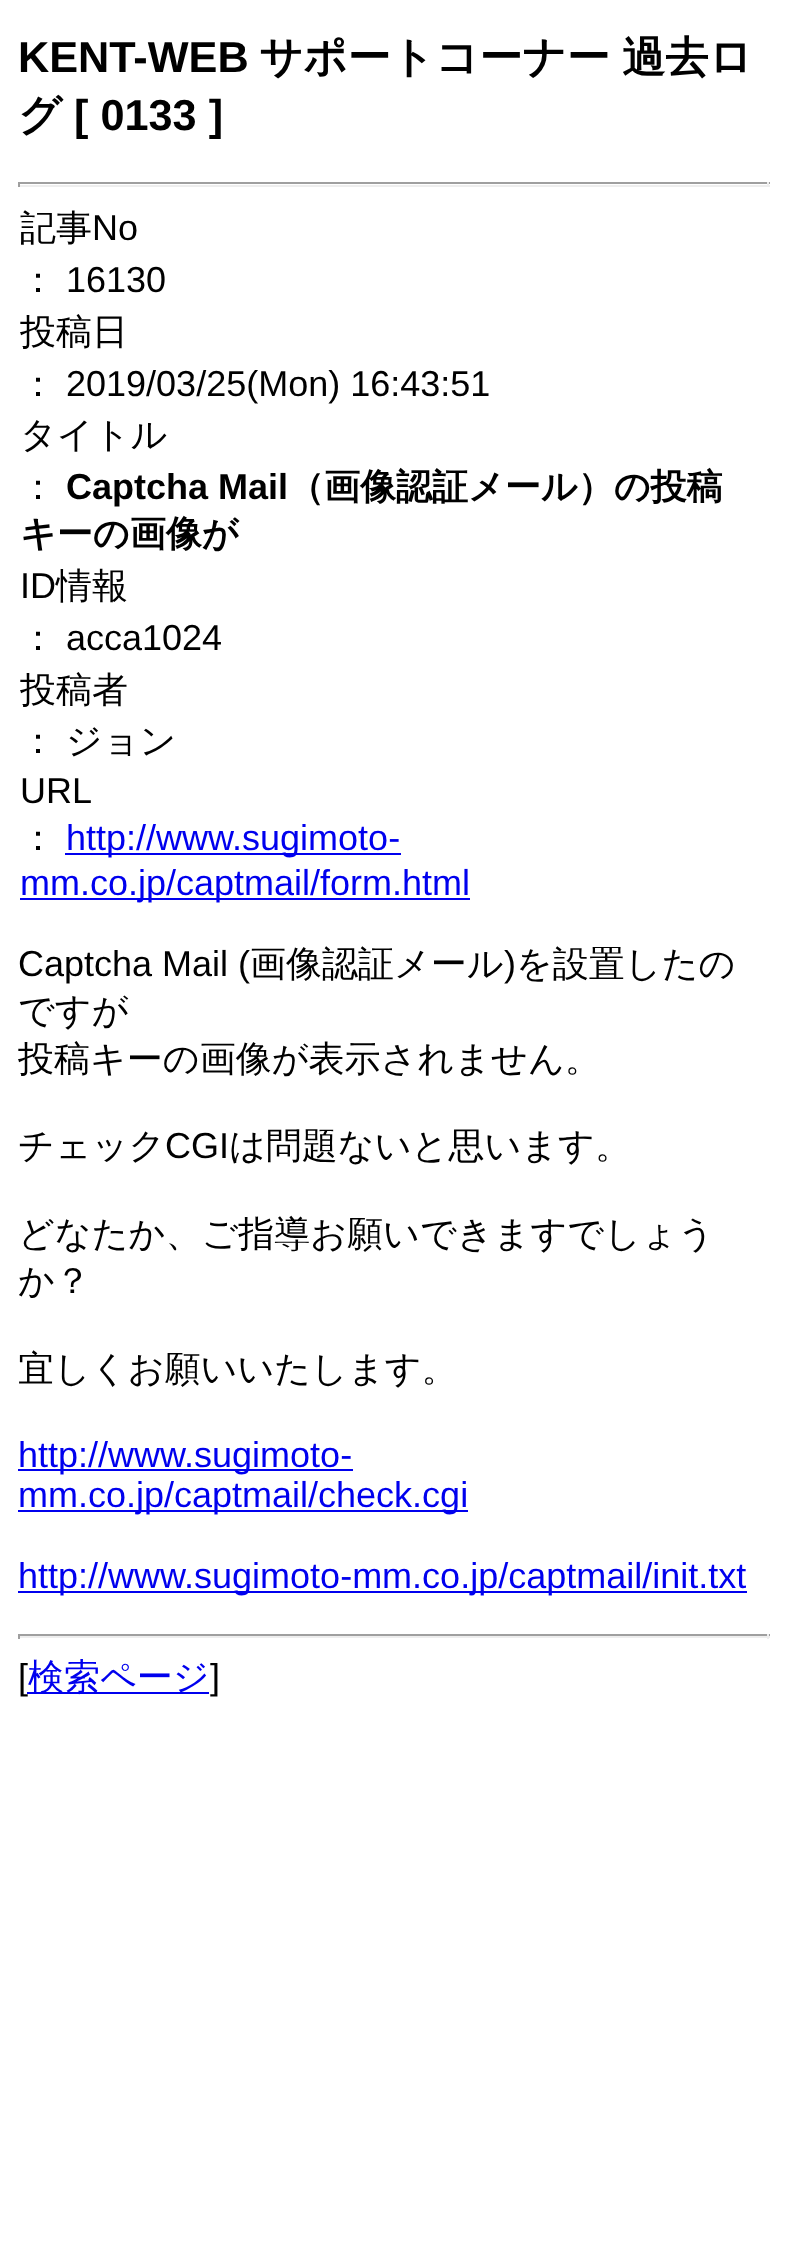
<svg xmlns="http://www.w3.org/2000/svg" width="787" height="2263">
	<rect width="100%" height="100%" fill="#FFFFFF" />
	<text x="18" y="72" font-family="Liberation Sans" font-size="43.25" font-weight="700" fill="#000000">KENT-WEB</text>
	<g font-family="WenQuanYi Zen Hei" font-size="43.25" font-weight="700" fill="#000000">
		<text x="259" y="72" word-spacing="-1">サポートコーナー 過去ロ</text>
		<text x="18" y="130">グ</text>
	</g>
	<text x="74" y="130" font-family="Liberation Sans" font-size="43.25" font-weight="700" fill="#000000">[ 0133 ]</text>
	<rect x="18" y="182" width="752" height="2" fill="#9F9F9F" />
	<rect x="767" y="182" width="2" height="5" fill="#EEEEEE" />
	<rect x="18" y="185" width="752" height="2" fill="#EEEEEE" />
	<rect x="18" y="182" width="2" height="5" fill="#9F9F9F" />
	<text x="20" y="240" font-family="WenQuanYi Zen Hei" font-size="36" font-weight="500" fill="#000000">記事</text>
	<text x="92" y="240" font-family="Liberation Sans" font-size="36" fill="#000000">No</text>
	<text x="20" y="292" font-family="WenQuanYi Zen Hei" font-size="36" font-weight="500" fill="#000000">：</text>
	<text x="66" y="292" font-family="Liberation Sans" font-size="36" fill="#000000">16130</text>
	<g font-family="WenQuanYi Zen Hei" font-size="36" font-weight="500" fill="#000000">
		<text x="20" y="344">投稿日</text>
		<text x="20" y="396">：</text>
	</g>
	<text x="66" y="396" font-family="Liberation Sans" font-size="36" fill="#000000">2019/03/25(Mon) 16:43:51</text>
	<g font-family="WenQuanYi Zen Hei" font-size="36" font-weight="500" fill="#000000">
		<text x="20" y="447">タイトル</text>
		<text x="20" y="499">：</text>
	</g>
	<text x="66" y="499" font-family="Liberation Sans" font-size="36" font-weight="700" fill="#000000">Captcha Mail</text>
	<g font-family="WenQuanYi Zen Hei" font-size="36" font-weight="700" fill="#000000">
		<text x="288" y="499">（画像認証メール）の投稿</text>
		<text x="20" y="546">キーの画像が</text>
	</g>
	<text x="20" y="598" font-family="Liberation Sans" font-size="36" fill="#000000">ID</text>
	<g font-family="WenQuanYi Zen Hei" font-size="36" font-weight="500" fill="#000000">
		<text x="56" y="598">情報</text>
		<text x="20" y="650">：</text>
	</g>
	<text x="66" y="650" font-family="Liberation Sans" font-size="36" fill="#000000">acca1024</text>
	<g font-family="WenQuanYi Zen Hei" font-size="36" font-weight="500" fill="#000000">
		<text x="20" y="702">投稿者</text>
		<text x="20" y="753" word-spacing="-1">： ジョン</text>
	</g>
	<text x="20" y="803" font-family="Liberation Sans" font-size="36" fill="#000000">URL</text>
	<text x="20" y="850" font-family="WenQuanYi Zen Hei" font-size="36" font-weight="500" fill="#000000">：</text>
	<rect x="65" y="853" width="336" height="2" fill="#0000EE" />
	<text x="66" y="850" font-family="Liberation Sans" font-size="36" fill="#0000EE">http://www.sugimoto-</text>
	<rect x="20" y="898" width="450" height="2" fill="#0000EE" />
	<text x="20" y="895" font-family="Liberation Sans" font-size="36" fill="#0000EE">mm.co.jp/captmail/form.html</text>
	<text x="18" y="976" font-family="Liberation Sans" font-size="36" fill="#000000">Captcha Mail (</text>
	<text x="250" y="976" font-family="WenQuanYi Zen Hei" font-size="36" font-weight="500" fill="#000000">画像認証メール</text>
	<text x="504" y="976" font-family="Liberation Sans" font-size="36" fill="#000000">)</text>
	<g font-family="WenQuanYi Zen Hei" font-size="36" font-weight="500" fill="#000000">
		<text x="516" y="976">を設置したの</text>
		<text x="18" y="1023">ですが</text>
		<text x="18" y="1071">投稿キーの画像が表示されません。</text>
		<text x="18" y="1158">チェック</text>
	</g>
	<text x="165" y="1158" font-family="Liberation Sans" font-size="36" fill="#000000">CGI</text>
	<g font-family="WenQuanYi Zen Hei" font-size="36" font-weight="500" fill="#000000">
		<text x="229" y="1158">は問題ないと思います。</text>
		<text x="18" y="1246">どなたか、ご指導お願いできますでしょう</text>
		<text x="18" y="1293">か？</text>
		<text x="18" y="1381">宜しくお願いいたします。</text>
	</g>
	<rect x="18" y="1469" width="335" height="2" fill="#0000EE" />
	<text x="18" y="1467" font-family="Liberation Sans" font-size="36" fill="#0000EE">http://www.sugimoto-</text>
	<rect x="18" y="1510" width="450" height="2" fill="#0000EE" />
	<text x="18" y="1507" font-family="Liberation Sans" font-size="36" fill="#0000EE">mm.co.jp/captmail/check.cgi</text>
	<rect x="18" y="1591" width="729" height="2" fill="#0000EE" />
	<text x="18" y="1588" font-family="Liberation Sans" font-size="36" fill="#0000EE">http://www.sugimoto-mm.co.jp/captmail/init.txt</text>
	<rect x="18" y="1634" width="752" height="2" fill="#9F9F9F" />
	<rect x="767" y="1634" width="2" height="5" fill="#EEEEEE" />
	<rect x="18" y="1636" width="752" height="2" fill="#EEEEEE" />
	<rect x="18" y="1634" width="2" height="5" fill="#9F9F9F" />
	<text x="18" y="1689" font-family="Liberation Sans" font-size="36" fill="#000000">[</text>
	<rect x="27" y="1692" width="182" height="2" fill="#0000EE" />
	<text x="28" y="1689" font-family="WenQuanYi Zen Hei" font-size="36" font-weight="500" fill="#0000EE">検索ページ</text>
	<text x="210" y="1689" font-family="Liberation Sans" font-size="36" fill="#000000">]</text>
</svg>
